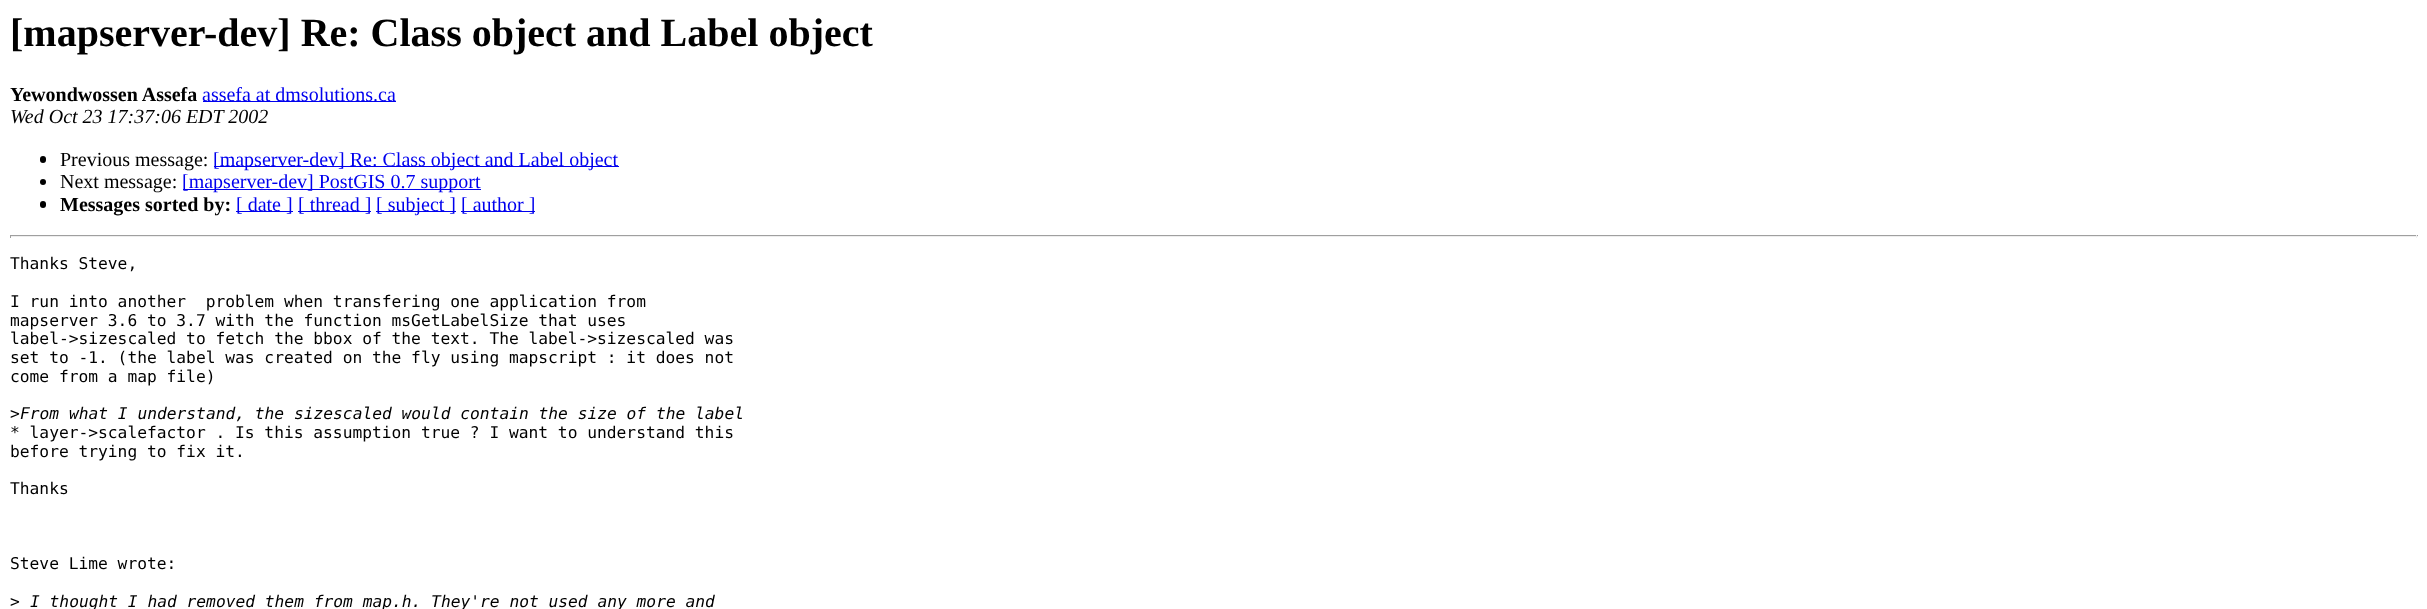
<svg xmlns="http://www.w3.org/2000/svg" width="2427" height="609">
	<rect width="100%" height="100%" fill="#FFFFFF" />
	<text x="10" y="46" font-family="Liberation Serif" font-size="40" font-weight="700" fill="#000000">[mapserver-dev] Re: Class object and Label object</text>
	<text x="10" y="101" font-family="Liberation Serif" font-size="20" font-weight="700" fill="#000000">Yewondwossen Assefa</text>
	<rect x="203" y="101" width="193" height="1" fill="#0000EE" />
	<text x="202" y="101" font-family="Liberation Serif" font-size="20" fill="#0000EE">assefa at dmsolutions.ca</text>
	<text x="10" y="123" font-family="Liberation Serif" font-size="20" font-style="italic" fill="#000000">Wed Oct 23 17:37:06 EDT 2002</text>
	<rect x="40" y="156" width="6" height="7" rx="3" fill="#000000" />
	<text x="60" y="166" font-family="Liberation Serif" font-size="20" fill="#000000">Previous message:</text>
	<rect x="214" y="166" width="405" height="1" fill="#0000EE" />
	<text x="213" y="166" font-family="Liberation Serif" font-size="20" fill="#0000EE">[mapserver-dev] Re: Class object and Label object</text>
	<circle cx="43" cy="182" r="3" fill="#000000" />
	<text x="60" y="188" font-family="Liberation Serif" font-size="20" fill="#000000">Next message:</text>
	<rect x="183" y="189" width="298" height="1" fill="#0000EE" />
	<text x="182" y="188" font-family="Liberation Serif" font-size="20" fill="#0000EE">[mapserver-dev] PostGIS 0.7 support</text>
	<rect x="40" y="201" width="6" height="7" rx="3" fill="#000000" />
	<text x="60" y="211" font-family="Liberation Serif" font-size="20" font-weight="700" fill="#000000">Messages sorted by:</text>
	<rect x="236" y="211" width="57" height="1" fill="#0000EE" />
	<text x="236" y="211" font-family="Liberation Serif" font-size="20" fill="#0000EE">[ date ]</text>
	<rect x="298" y="211" width="73" height="1" fill="#0000EE" />
	<text x="298" y="211" font-family="Liberation Serif" font-size="20" fill="#0000EE">[ thread ]</text>
	<rect x="376" y="211" width="80" height="1" fill="#0000EE" />
	<text x="376" y="211" font-family="Liberation Serif" font-size="20" fill="#0000EE">[ subject ]</text>
	<rect x="461" y="211" width="74" height="1" fill="#0000EE" />
	<text x="461" y="211" font-family="Liberation Serif" font-size="20" fill="#0000EE">[ author ]</text>
	<rect x="10" y="235" width="2408" height="1" fill="#9F9F9F" />
	<rect x="2416" y="235" width="1" height="3" fill="#EEEEEE" />
	<rect x="10" y="236" width="2408" height="1" fill="#EEEEEE" />
	<rect x="10" y="235" width="1" height="3" fill="#9F9F9F" />
	<g font-family="DejaVu Sans Mono" font-size="16.25" fill="#000000">
		<text x="10" y="269">Thanks Steve,</text>
		<text x="10" y="307" xml:space="preserve">I run into another  problem when transfering one application from</text>
		<text x="10" y="326">mapserver 3.6 to 3.7 with the function msGetLabelSize that uses</text>
		<text x="10" y="344">label-&gt;sizescaled to fetch the bbox of the text. The label-&gt;sizescaled was</text>
		<text x="10" y="363">set to -1. (the label was created on the fly using mapscript : it does not</text>
		<text x="10" y="382">come from a map file)</text>
		<text x="10" y="419">&gt;</text>
	</g>
	<text x="20" y="419" font-family="DejaVu Sans Mono" font-size="16.25" font-style="italic" fill="#000000">From what I understand, the sizescaled would contain the size of the label</text>
	<g font-family="DejaVu Sans Mono" font-size="16.25" fill="#000000">
		<text x="10" y="438">* layer-&gt;scalefactor . Is this assumption true ? I want to understand this</text>
		<text x="10" y="457">before trying to fix it.</text>
		<text x="10" y="494">Thanks</text>
		<text x="10" y="569">Steve Lime wrote:</text>
		<text x="10" y="607">&gt;</text>
	</g>
	<text x="30" y="607" font-family="DejaVu Sans Mono" font-size="16.25" font-style="italic" fill="#000000">I thought I had removed them from map.h. They're not used any more and</text>
</svg>
